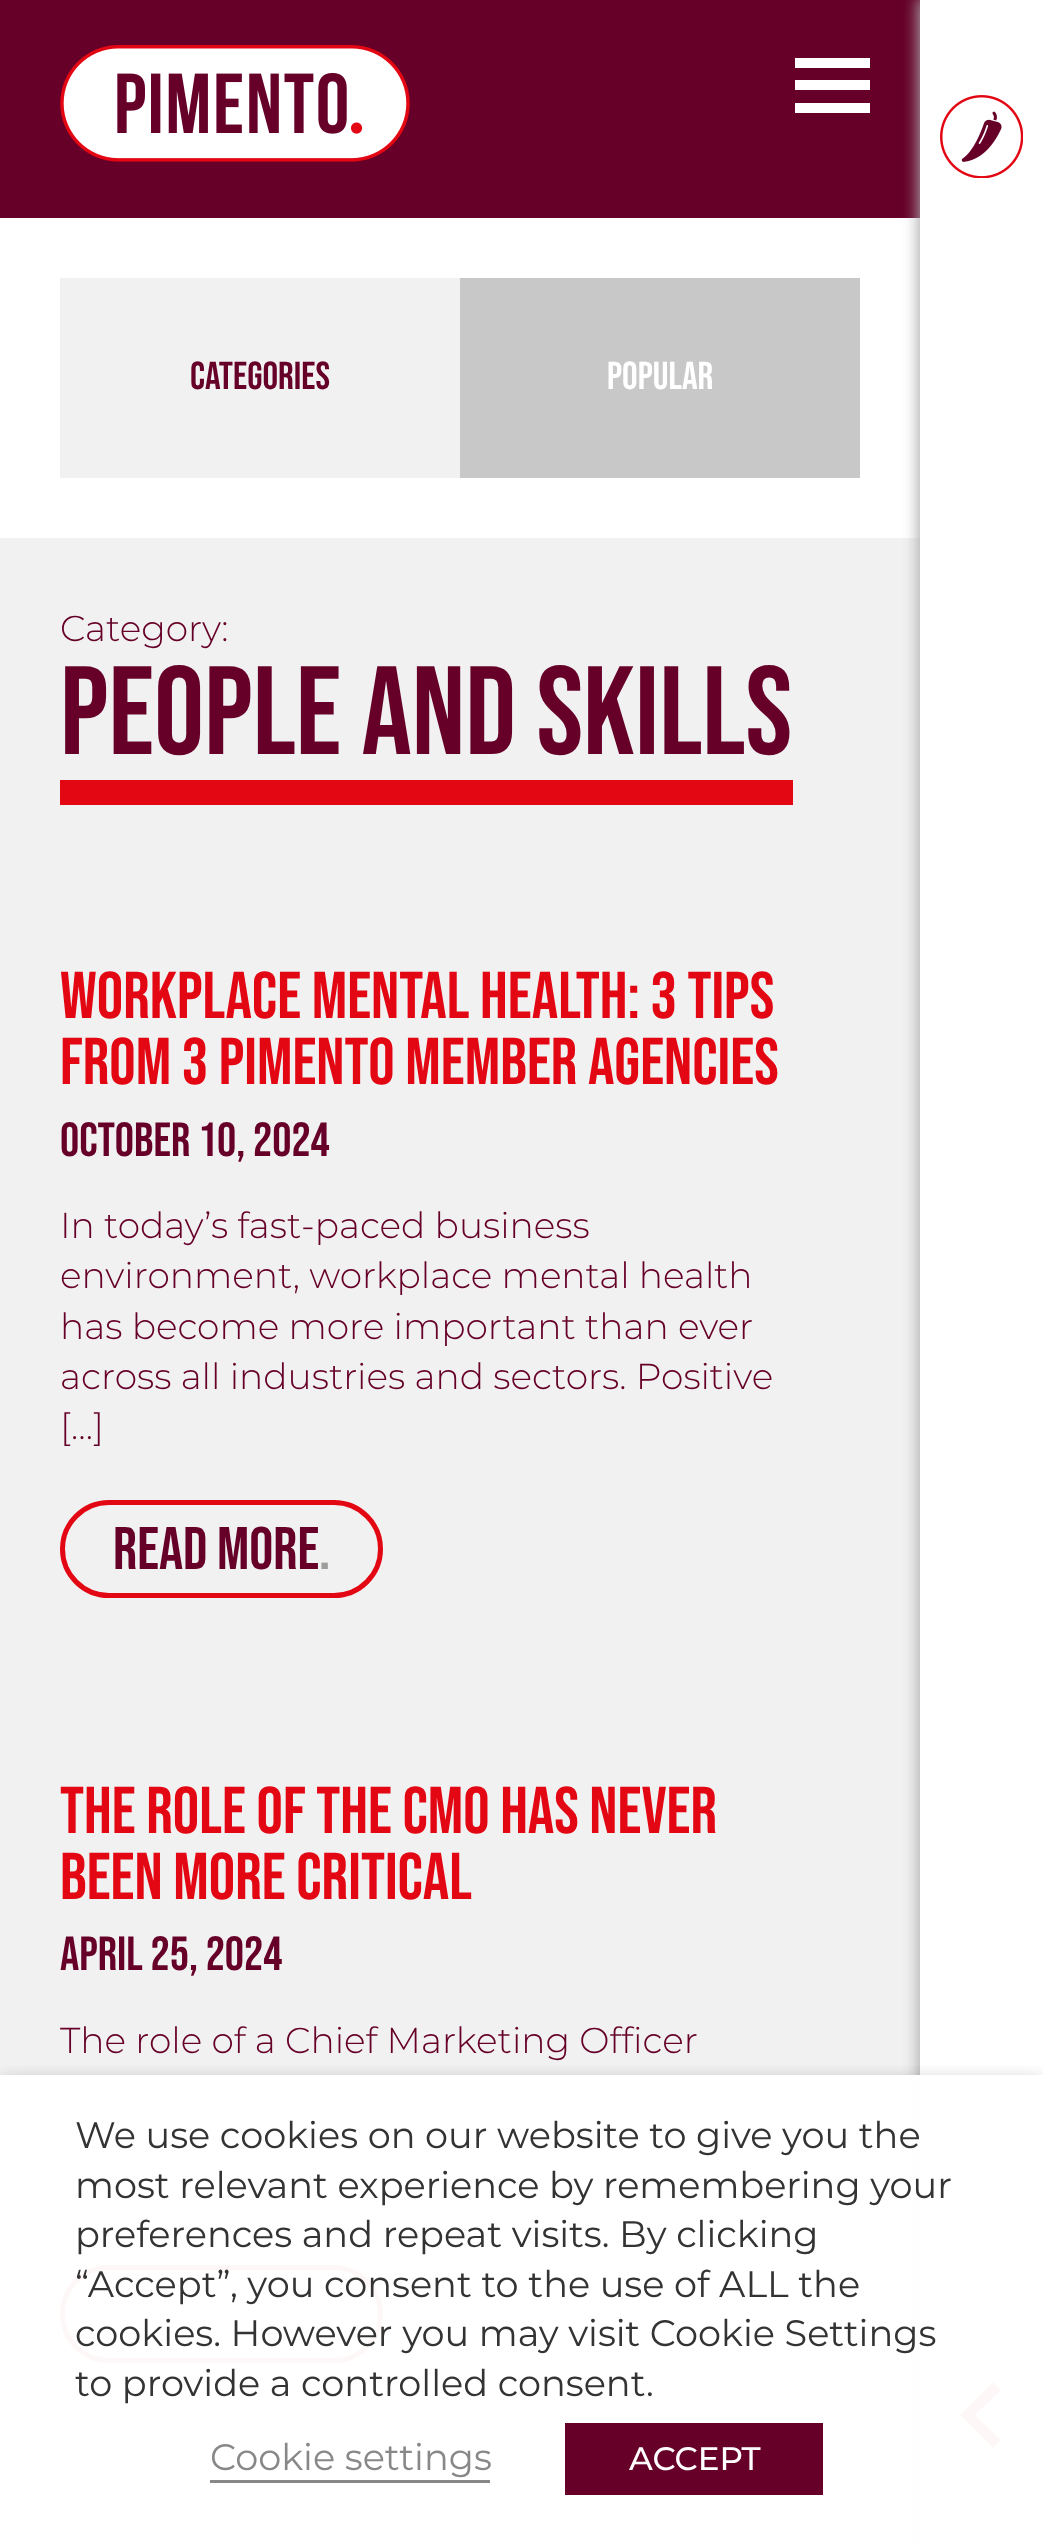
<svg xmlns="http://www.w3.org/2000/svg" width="1043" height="2545">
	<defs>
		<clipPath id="clip1"><rect x="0" y="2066" width="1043" height="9" /></clipPath>
	</defs>
	<rect width="100%" height="100%" fill="#FFFFFF" />
	<rect x="0" y="0" width="920" height="218" fill="#660028" />
	<image x="60" y="45" width="350" height="117" href="assets/img1.png" />
	<rect x="795" y="58" width="75" height="10" fill="#FFFFFF" />
	<rect x="795" y="80" width="75" height="10" fill="#FFFFFF" />
	<rect x="795" y="103" width="75" height="10" fill="#FFFFFF" />
	<rect x="0" y="538" width="920" height="2007" fill="#F1F1F1" />
	<rect x="918" y="-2" width="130" height="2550" fill="#AAAAAA" filter="blur(7.5px)" />
	<rect x="920" y="0" width="123" height="2545" fill="#FFFFFF" />
	<image x="940" y="95" width="83" height="83" href="assets/img2.png" />
	<path d="M1001 2390L993 2382L960 2415L993 2448L1001 2440L975 2415Z" fill="#E30613" fill-rule="evenodd" />
	<rect x="60" y="278" width="400" height="200" fill="#F1F1F1" />
	<text x="190" y="389" font-family="Bebas Neue" font-size="39" fill="#660028">Categories</text>
	<rect x="460" y="278" width="400" height="200" fill="#C8C8C8" />
	<text x="607" y="389" font-family="Bebas Neue" font-size="39" fill="#FFFFFF">Popular</text>
	<text x="60" y="641" font-family="Montserrat" font-size="36" font-weight="300" fill="#660028">Category:</text>
	<rect x="60" y="780" width="733" height="25" fill="#E30613" />
	<text x="60" y="754" font-family="Bebas Neue" font-size="125.5" fill="#660028">PEOPLE AND SKILLS</text>
	<g font-family="Bebas Neue" font-size="66" fill="#E30613">
		<text x="60" y="1018">Workplace Mental Health: 3 Tips</text>
		<text x="60" y="1084">from 3 Pimento Member Agencies</text>
	</g>
	<text x="60" y="1156" font-family="Bebas Neue" font-size="48" fill="#660028">October 10, 2024</text>
	<g font-family="Montserrat" font-size="36" font-weight="300" fill="#660028">
		<text x="60" y="1238">In today’s fast-paced business</text>
		<text x="60" y="1288">environment, workplace mental health</text>
		<text x="60" y="1339">has become more important than ever</text>
		<text x="60" y="1389">across all industries and sectors. Positive</text>
		<text x="60" y="1439">[…]</text>
	</g>
	<rect x="62.5" y="1502.5" width="318" height="93" rx="46.5" fill="none" stroke="#E30613" stroke-width="5" />
	<text x="113" y="1569" font-family="Bebas Neue" font-size="60" fill="#660028">Read more</text>
	<text x="319" y="1569" font-family="Bebas Neue" font-size="60" fill="#9D9D9C">.</text>
	<g font-family="Bebas Neue" font-size="66" fill="#E30613">
		<text x="60" y="1833">The Role of the CMO Has Never</text>
		<text x="60" y="1899">Been More Critical</text>
	</g>
	<text x="60" y="1970" font-family="Bebas Neue" font-size="48" fill="#660028">April 25, 2024</text>
	<text x="60" y="2053" font-family="Montserrat" font-size="36" font-weight="300" fill="#660028">The role of a Chief Marketing Officer</text>
	<rect x="62.5" y="2267.5" width="318" height="93" rx="46.5" fill="none" stroke="#E30613" stroke-width="5" />
	<g clip-path="url(#clip1)">
		<rect x="0" y="2088" width="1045" height="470" fill="#000000" fill-opacity="0.5" filter="blur(12.5px)" />
	</g>
	<rect x="0" y="2075" width="1001" height="470" fill="#FFFFFF" fill-opacity="0.97" />
	<g font-family="Montserrat" font-size="36.7" fill="#333333">
		<text x="75" y="2148">We use cookies on our website to give you the</text>
		<text x="75" y="2198">most relevant experience by remembering your</text>
		<text x="75" y="2247">preferences and repeat visits. By clicking</text>
		<text x="75" y="2297">“Accept”, you consent to the use of ALL the</text>
		<text x="75" y="2346">cookies. However you may visit Cookie Settings</text>
		<text x="75" y="2396">to provide a controlled consent.</text>
	</g>
	<text x="210" y="2470" font-family="Montserrat" font-size="36.7" fill="#898888">Cookie settings</text>
	<rect x="210" y="2480" width="280" height="3" fill="#898888" />
	<rect x="565" y="2423" width="258" height="72" fill="#660028" />
	<text x="629" y="2470" font-family="Montserrat" font-size="32.5" font-weight="500" fill="#FFFFFF">ACCEPT</text>
</svg>
